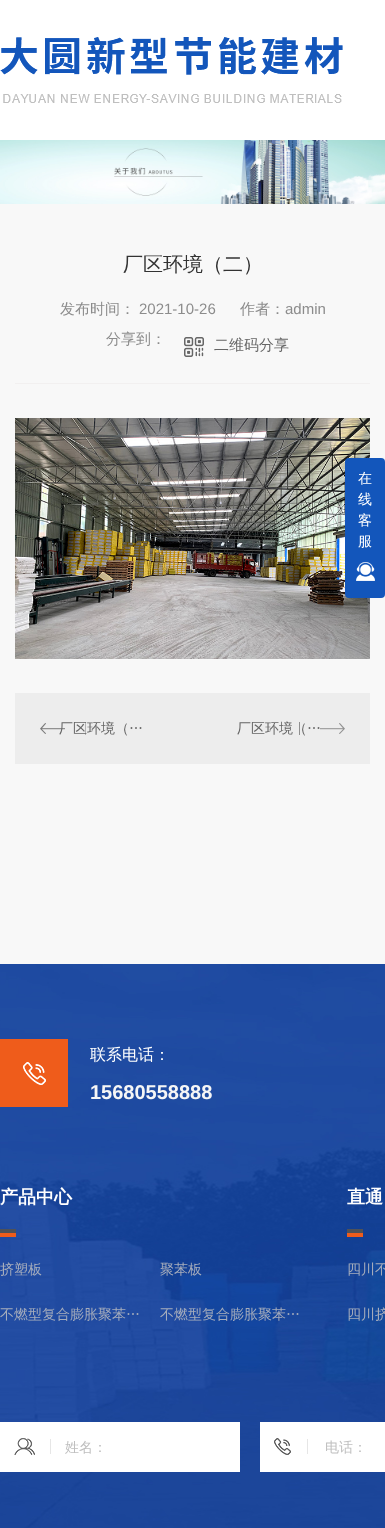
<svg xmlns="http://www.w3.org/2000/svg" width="385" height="1528">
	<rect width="100%" height="100%" fill="#FFFFFF" />
	<image x="0" y="37" width="343" height="66" href="assets/img1.png" />
	<image x="0" y="140" width="385" height="64" href="assets/img2.png" />
	<rect x="0" y="204" width="385" height="760" fill="#F8F8F8" />
	<text x="123" y="271" font-family="WenQuanYi Zen Hei" font-size="20" font-weight="500" fill="#333333">厂区环境（二）</text>
	<rect x="15" y="383" width="355" height="1" fill="#F2F0F0" />
	<text x="60" y="314" font-family="WenQuanYi Zen Hei" font-size="15" font-weight="500" fill="#8C8C8C">发布时间：</text>
	<text x="139" y="314" font-family="Liberation Sans" font-size="15" fill="#8C8C8C">2021-10-26</text>
	<text x="240" y="314" font-family="WenQuanYi Zen Hei" font-size="15" font-weight="500" fill="#8C8C8C">作者：</text>
	<text x="285" y="314" font-family="Liberation Sans" font-size="15" fill="#8C8C8C">admin</text>
	<text x="106" y="344" font-family="WenQuanYi Zen Hei" font-size="15" font-weight="500" fill="#8C8C8C">分享到：</text>
	<image x="184" y="337" width="20" height="20" href="assets/img3.png" />
	<text x="214" y="350" font-family="WenQuanYi Zen Hei" font-size="15" font-weight="500" fill="#666666">二维码分享</text>
	<image x="15" y="418" width="355" height="241" href="assets/img4.png" />
	<rect x="15" y="693" width="355" height="71" fill="#EDEDED" />
	<image x="40" y="722" width="46" height="13" href="assets/img5.png" />
	<text x="59" y="733" font-family="WenQuanYi Zen Hei" font-size="14" font-weight="500" fill="#666666">厂区环境（…</text>
	<image x="299" y="722" width="46" height="13" href="assets/img6.png" />
	<text x="237" y="733" font-family="WenQuanYi Zen Hei" font-size="14" font-weight="500" fill="#666666">厂区环境（…</text>
	<rect x="345" y="458" width="40" height="140" rx="4" fill="#1356BB" />
	<g font-family="WenQuanYi Zen Hei" font-size="14" font-weight="500" fill="#FFFFFF">
		<text x="358" y="483">在</text>
		<text x="358" y="504">线</text>
		<text x="358" y="525">客</text>
		<text x="358" y="546">服</text>
	</g>
	<image x="356" y="562" width="19" height="19" href="assets/img7.png" />
	<image x="0" y="964" width="385" height="564" href="assets/img8.png" />
	<image x="0" y="1039" width="68" height="68" href="assets/img9.png" />
	<text x="90" y="1060" font-family="WenQuanYi Zen Hei" font-size="16" font-weight="500" fill="#FFFFFF">联系电话：</text>
	<text x="90" y="1099" font-family="Liberation Sans" font-size="20" font-weight="700" fill="#F6F6F6">15680558888</text>
	<image x="0" y="1229" width="16" height="8" href="assets/img10.png" />
	<text x="0" y="1203" font-family="WenQuanYi Zen Hei" font-size="18" font-weight="700" fill="#FFFFFF">产品中心</text>
	<g font-family="WenQuanYi Zen Hei" font-size="14" font-weight="500" fill="#A6ADBC">
		<text x="0" y="1274">挤塑板</text>
		<text x="160" y="1274">聚苯板</text>
		<text x="0" y="1319">不燃型复合膨胀聚苯…</text>
		<text x="160" y="1319">不燃型复合膨胀聚苯…</text>
	</g>
	<image x="347" y="1229" width="16" height="8" href="assets/img10.png" />
	<text x="347" y="1203" font-family="WenQuanYi Zen Hei" font-size="18" font-weight="700" fill="#FFFFFF">直通</text>
	<g font-family="WenQuanYi Zen Hei" font-size="14" font-weight="500" fill="#A6ADBC">
		<text x="347" y="1274">四川不</text>
		<text x="347" y="1319">四川挤</text>
	</g>
	<rect x="0" y="1422" width="240" height="50" fill="#FFFFFF" />
	<image x="14" y="1438" width="37" height="17" href="assets/img11.png" />
	<text x="65" y="1452" font-family="WenQuanYi Zen Hei" font-size="14" font-weight="500" fill="#BFBFBF">姓名：</text>
	<rect x="260" y="1422" width="125" height="50" fill="#FFFFFF" />
	<image x="274" y="1438" width="34" height="17" href="assets/img12.png" />
	<text x="325" y="1452" font-family="WenQuanYi Zen Hei" font-size="14" font-weight="500" fill="#BFBFBF">电话：</text>
</svg>
